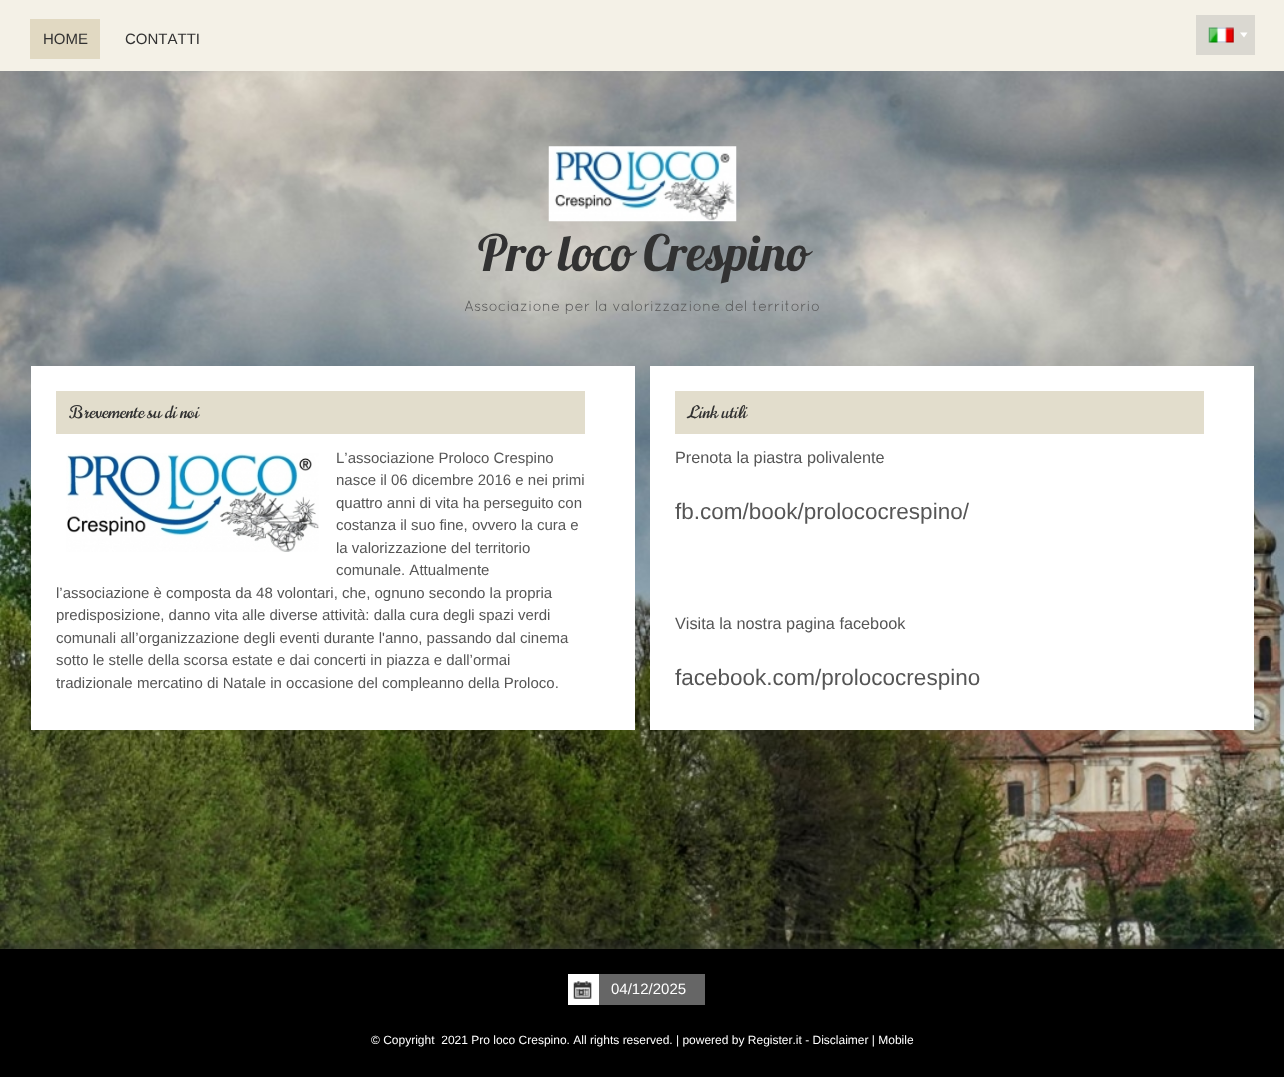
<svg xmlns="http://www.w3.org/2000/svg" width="1284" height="1077">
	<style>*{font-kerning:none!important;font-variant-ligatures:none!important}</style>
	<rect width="100%" height="100%" fill="#FFFFFF" />
	<image x="0" y="71" width="1284" height="878" href="assets/img1.png" />
	<rect x="0" y="0" width="1284" height="71" fill="#F4F1E7" />
	<rect x="30" y="19" width="70" height="40" fill="#E1D9C2" />
	<g font-family="Liberation Sans" font-size="15" fill="#323232">
		<text x="43" y="44">HOME</text>
		<text x="125" y="44">CONTATTI</text>
	</g>
	<rect x="1196" y="15" width="59" height="40" fill="#DAD8D1" />
	<image x="1208" y="27" width="26" height="16" href="assets/img2.png" />
	<path d="M1240 32.5H1247.5L1244 37.5Z" fill="#FFFFFF" />
	<image x="548" y="146" width="189" height="76" href="assets/img3.png" />
	<text x="478" y="271" font-family="'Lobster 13'" font-size="50" fill="#323232">Pro loco Crespino</text>
	<text x="464" y="311" font-family="Quicksand" font-size="15" fill="#565656">Associazione per la valorizzazione del territorio</text>
	<rect x="31" y="366" width="604" height="364" fill="#FFFFFF" />
	<rect x="56" y="391" width="529" height="43" fill="#E2DDCC" />
	<text x="69" y="418" font-family="Norican" font-size="17.5" fill="#323232">Brevemente su di noi</text>
	<g font-family="Liberation Sans" font-size="15" fill="#565656">
		<text x="336" y="463">L’associazione Proloco Crespino</text>
		<text x="336" y="485">nasce il 06 dicembre 2016 e nei primi</text>
		<text x="336" y="508">quattro anni di vita ha perseguito con</text>
		<text x="336" y="530">costanza il suo fine, ovvero la cura e</text>
		<text x="336" y="553">la valorizzazione del territorio</text>
		<text x="336" y="575">comunale. Attualmente</text>
		<text x="56" y="598">l’associazione è composta da 48 volontari, che, ognuno secondo la propria</text>
		<text x="56" y="620">predisposizione, danno vita alle diverse attività: dalla cura degli spazi verdi</text>
		<text x="56" y="643">comunali all’organizzazione degli eventi durante l'anno, passando dal cinema</text>
		<text x="56" y="665">sotto le stelle della scorsa estate e dai concerti in piazza e dall’ormai</text>
		<text x="56" y="688">tradizionale mercatino di Natale in occasione del compleanno della Proloco.</text>
	</g>
	<image x="66" y="453" width="253" height="99" href="assets/img4.png" />
	<rect x="650" y="366" width="604" height="364" fill="#FFFFFF" />
	<rect x="675" y="391" width="529" height="43" fill="#E2DDCC" />
	<text x="688" y="418" font-family="Norican" font-size="17.5" fill="#323232">Link utili</text>
	<text x="675" y="463" font-family="Liberation Sans" font-size="16.25" fill="#565656">Prenota la piastra polivalente</text>
	<text x="675" y="519" font-family="Liberation Sans" font-size="22.5" fill="#565656">fb.com/book/prolococrespino/</text>
	<text x="675" y="629" font-family="Liberation Sans" font-size="16.25" fill="#565656">Visita la nostra pagina facebook</text>
	<text x="675" y="685" font-family="Liberation Sans" font-size="22.5" fill="#565656">facebook.com/prolococrespino</text>
	<rect x="0" y="945" width="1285" height="129" fill="#323232" fill-opacity="0.5" filter="blur(4px)" />
	<rect x="0" y="949" width="1284" height="128" fill="#000000" />
	<rect x="599" y="974" width="106" height="31" fill="#666666" />
	<rect x="568" y="974" width="31" height="31" fill="#FFFFFF" />
	<image x="573" y="981" width="19" height="18" href="assets/img5.png" />
	<text x="611" y="994" font-family="Liberation Sans" font-size="15" fill="#FFFFFF">04/12/2025</text>
	<text x="371" y="1044" font-family="Liberation Sans" font-size="12" fill="#FFFFFF" xml:space="preserve">© Copyright  2021 Pro loco Crespino. All rights reserved. | powered by Register.it - Disclaimer | Mobile</text>
</svg>
